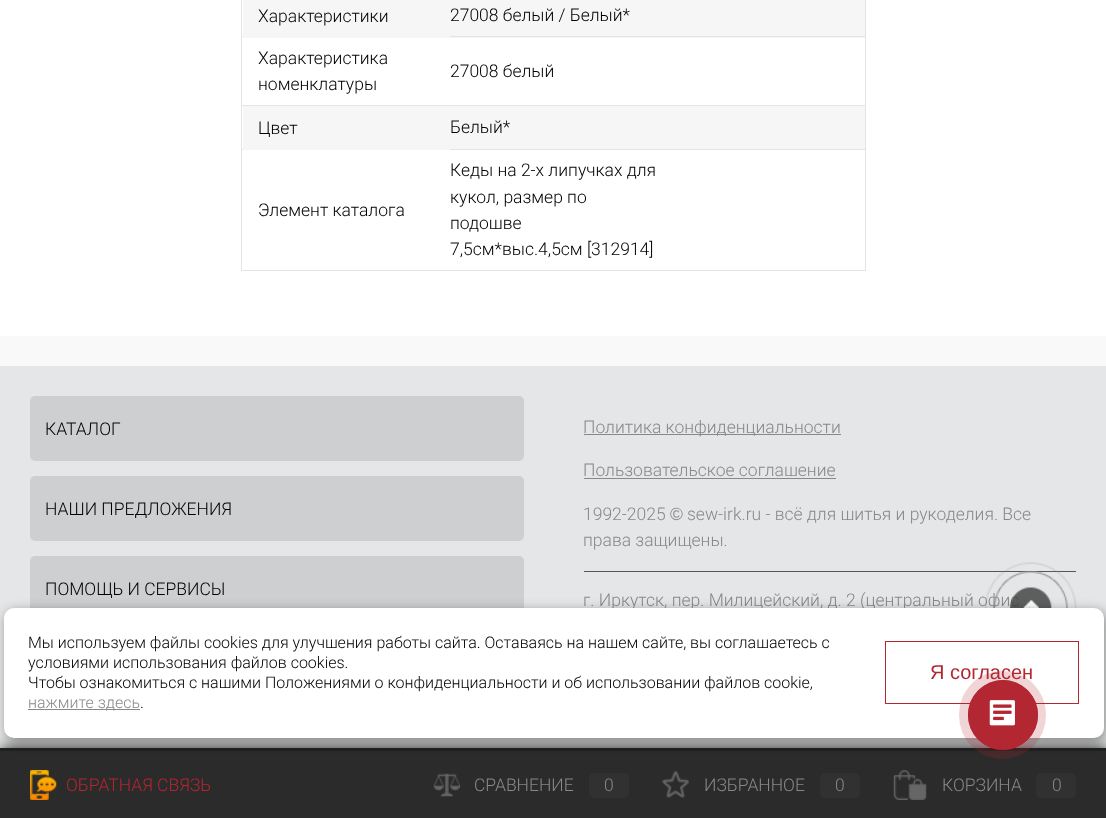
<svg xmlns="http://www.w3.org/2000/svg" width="1106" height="818">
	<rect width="100%" height="100%" fill="#FFFFFF" />
	<rect x="450" y="0" width="415" height="38" fill="#F6F6F6" />
	<rect x="241" y="36" width="625" height="1" fill="#E4E4E4" />
	<rect x="243" y="0" width="207" height="38" fill="#F6F6F6" />
	<g font-family="Roboto" font-size="17.5" font-weight="300" fill="#000000">
		<text x="258" y="22">Характеристики</text>
		<text x="450" y="21">27008 белый / Белый*</text>
	</g>
	<rect x="241" y="105" width="625" height="1" fill="#E4E4E4" />
	<rect x="241" y="149" width="625" height="1" fill="#E4E4E4" />
	<rect x="865" y="149" width="1" height="122" fill="#E4E4E4" />
	<rect x="865" y="105" width="1" height="45" fill="#E4E4E4" />
	<rect x="865" y="0" width="1" height="106" fill="#E4E4E4" />
	<rect x="241" y="270" width="625" height="1" fill="#E4E4E4" />
	<rect x="241" y="149" width="1" height="122" fill="#E4E4E4" />
	<rect x="241" y="105" width="1" height="45" fill="#E4E4E4" />
	<rect x="241" y="0" width="1" height="106" fill="#E4E4E4" />
	<g font-family="Roboto" font-size="17.5" font-weight="300" fill="#000000">
		<text x="258" y="64">Характеристика</text>
		<text x="258" y="90">номенклатуры</text>
		<text x="450" y="77">27008 белый</text>
	</g>
	<rect x="243" y="106" width="207" height="44" fill="#F6F6F6" />
	<text x="258" y="134" font-family="Roboto" font-size="17.5" font-weight="300" fill="#000000">Цвет</text>
	<rect x="450" y="106" width="415" height="43" fill="#F6F6F6" />
	<g font-family="Roboto" font-size="17.5" font-weight="300" fill="#000000">
		<text x="450" y="133">Белый*</text>
		<text x="258" y="216">Элемент каталога</text>
		<text x="450" y="176">Кеды на 2-х липучках для</text>
		<text x="450" y="203">кукол, размер по</text>
		<text x="450" y="229">подошве</text>
		<text x="450" y="255">7,5см*выс.4,5см [312914]</text>
	</g>
	<rect x="0" y="336" width="1106" height="30" fill="#F9F9F9" />
	<rect x="0" y="366" width="1106" height="382" fill="#E5E6E7" />
	<rect x="30" y="396" width="494" height="65" rx="5" fill="#CECFD0" />
	<text x="45" y="435" font-family="Roboto" font-size="17.5" font-weight="300" fill="#000000">КАТАЛОГ</text>
	<rect x="30" y="476" width="494" height="65" rx="5" fill="#CECFD0" />
	<text x="45" y="515" font-family="Roboto" font-size="17.5" font-weight="300" fill="#000000">НАШИ ПРЕДЛОЖЕНИЯ</text>
	<rect x="30" y="556" width="494" height="65" rx="5" fill="#CECFD0" />
	<text x="45" y="595" font-family="Roboto" font-size="17.5" font-weight="300" fill="#000000">ПОМОЩЬ И СЕРВИСЫ</text>
	<rect x="584" y="434" width="257" height="1" fill="#888888" />
	<g font-family="Roboto" font-size="17.5" font-weight="300" fill="#888888">
		<text x="583" y="433">Политика конфиденциальности</text>
		<text x="583" y="476">Пользовательское соглашение</text>
	</g>
	<rect x="584" y="478" width="252" height="1" fill="#888888" />
	<text x="583" y="520" font-family="Roboto" font-size="17.5" font-weight="300" fill="#888888">1992-2025</text>
	<text x="670" y="520" font-family="Liberation Sans" font-size="17.5" fill="#888888">©</text>
	<g font-family="Roboto" font-size="17.5" font-weight="300" fill="#888888">
		<text x="687" y="520">sew-irk.ru - всё для шитья и рукоделия. Все</text>
		<text x="583" y="546">права защищены.</text>
	</g>
	<rect x="584" y="571" width="492" height="1" fill="#575757" />
	<text x="583" y="606" font-family="Roboto" font-size="17.5" font-weight="300" fill="#888888">г. Иркутск, пер. Милицейский, д. 2 (центральный офис</text>
	<image x="985" y="562" width="92" height="46" href="assets/img1.png" />
	<rect x="1" y="749" width="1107" height="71" fill="#000000" filter="blur(7.5px)" />
	<rect x="0" y="751" width="1106" height="67" fill="#2B2B2B" />
	<rect x="0" y="748" width="1106" height="3" fill="#202020" />
	<rect x="6" y="611" width="1100" height="130" rx="10" fill="#000000" fill-opacity="0.4" filter="blur(6px)" />
	<rect x="4" y="608" width="1100" height="130" rx="10" fill="#FFFFFF" />
	<g font-family="Roboto" font-size="16" font-weight="300" fill="#000000">
		<text x="28" y="648">Мы используем файлы cookies для улучшения работы сайта. Оставаясь на нашем сайте, вы соглашаетесь с</text>
		<text x="28" y="668">условиями использования файлов cookies.</text>
		<text x="28" y="688">Чтобы ознакомиться с нашими Положениями о конфиденциальности и об использовании файлов cookie,</text>
	</g>
	<rect x="28" y="709" width="112" height="1" fill="#888888" />
	<text x="28" y="708" font-family="Roboto" font-size="16" font-weight="300" fill="#888888">нажмите здесь</text>
	<text x="140" y="708" font-family="Roboto" font-size="16" font-weight="300" fill="#000000">.</text>
	<rect x="885.5" y="641.5" width="193" height="62" fill="none" stroke="#B22731" />
	<text x="930" y="679" font-family="Liberation Sans" font-size="20" fill="#B22731">Я согласен</text>
	<rect x="959" y="671" width="87" height="88" rx="43.5" fill="#B22731" fill-opacity="0.2" />
	<circle cx="1003" cy="715" r="34.5" fill="none" stroke="#B22731" />
	<circle cx="1003" cy="715" r="35" fill="#B22731" />
	<image x="989" y="700" width="26" height="26" href="assets/img2.png" />
	<image x="30" y="770" width="27" height="30" href="assets/img3.png" />
	<text x="66" y="791" font-family="Roboto" font-size="17.5" font-weight="300" fill="#B22731">ОБРАТНАЯ СВЯЗЬ</text>
	<image x="433" y="773" width="27" height="24" href="assets/img4.png" />
	<text x="474" y="791" font-family="Roboto" font-size="17.5" font-weight="300" fill="#888888">СРАВНЕНИЕ</text>
	<rect x="589" y="773" width="40" height="25" rx="5" fill="#313131" />
	<text x="604" y="791" font-family="Roboto" font-size="17.5" font-weight="300" fill="#888888">0</text>
	<image x="662" y="771" width="27" height="27" href="assets/img5.png" />
	<text x="704" y="791" font-family="Roboto" font-size="17.5" font-weight="300" fill="#888888">ИЗБРАННОЕ</text>
	<rect x="820" y="773" width="40" height="25" rx="5" fill="#313131" />
	<text x="835" y="791" font-family="Roboto" font-size="17.5" font-weight="300" fill="#888888">0</text>
	<image x="893" y="770" width="34" height="30" href="assets/img6.png" />
	<text x="942" y="791" font-family="Roboto" font-size="17.5" font-weight="300" fill="#888888">КОРЗИНА</text>
	<rect x="1036" y="773" width="40" height="25" rx="5" fill="#313131" />
	<text x="1052" y="791" font-family="Roboto" font-size="17.5" font-weight="300" fill="#888888">0</text>
</svg>
